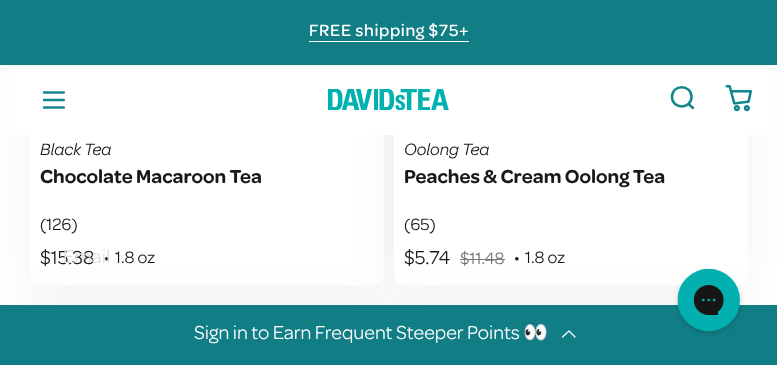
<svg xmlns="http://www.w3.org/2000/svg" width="777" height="365">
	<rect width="100%" height="100%" fill="#FFFFFF" />
	<rect x="30" y="-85" width="354" height="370" rx="10" fill="#000000" fill-opacity="0.05" filter="blur(25px)" />
	<rect x="30" y="-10" width="354" height="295" rx="10" fill="#FFFFFF" />
	<rect x="394" y="-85" width="354" height="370" rx="10" fill="#000000" fill-opacity="0.05" filter="blur(25px)" />
	<rect x="394" y="-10" width="354" height="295" rx="10" fill="#FFFFFF" />
	<rect x="9" y="65" width="760" height="70" fill="#FFFFFF" />
	<rect x="0" y="0" width="777" height="65" fill="#107E84" />
	<text x="309" y="36" font-family="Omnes" font-size="17.5" font-weight="500" letter-spacing="0.6" fill="#FFFFFF">FREE shipping $75+</text>
	<rect x="309" y="41" width="160" height="1" fill="#FFFFFF" />
	<image x="43" y="91" width="22" height="18" href="assets/img1.png" />
	<image x="328" y="89" width="121" height="21" href="assets/img2.png" />
	<path d="M688.5 104L693 108M691.5 97C691.5 109.5 672 109.5 672 97C672 84 691.5 84 691.5 97Z" fill="none" stroke="#11868D" stroke-width="2.5" stroke-linecap="round" />
	<image x="725" y="85" width="27" height="27" href="assets/img3.png" />
	<text x="40" y="155" font-family="Omnes" font-size="17.5" font-style="italic" fill="#191919">Black Tea</text>
	<text x="40" y="183" font-family="Omnes" font-size="20" font-weight="600" fill="#191919">Chocolate Macaroon Tea</text>
	<text x="40" y="230" font-family="Omnes" font-size="17.5" fill="#191919">(126)</text>
	<text x="40" y="264" font-family="Omnes" font-size="20" fill="#191919">$15.38</text>
	<g font-family="Omnes" font-size="17.5" fill="#191919">
		<text x="104" y="263">•</text>
		<text x="115" y="263">1.8 oz</text>
	</g>
	<text x="404" y="155" font-family="Omnes" font-size="17.5" font-style="italic" fill="#191919">Oolong Tea</text>
	<text x="404" y="183" font-family="Omnes" font-size="20" font-weight="600" fill="#191919">Peaches &amp; Cream Oolong Tea</text>
	<text x="404" y="230" font-family="Omnes" font-size="17.5" fill="#191919">(65)</text>
	<text x="404" y="264" font-family="Omnes" font-size="20" fill="#191919">$5.74</text>
	<text x="460" y="264" font-family="Omnes" font-size="17.5" fill="#757575">$11.48</text>
	<rect x="460" y="259" width="45" height="1" fill="#757575" />
	<g font-family="Omnes" font-size="17.5" fill="#191919">
		<text x="514" y="263">•</text>
		<text x="525" y="263">1.8 oz</text>
	</g>
	<rect x="30" y="305" width="354" height="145" rx="10" fill="#000000" fill-opacity="0.05" filter="blur(25px)" />
	<rect x="394" y="305" width="354" height="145" rx="10" fill="#000000" fill-opacity="0.05" filter="blur(25px)" />
	<text x="63" y="263" font-family="Omnes" font-size="20" fill="#DDDDDD">Email</text>
	<rect x="0" y="305" width="777" height="60" fill="#107E84" />
	<text x="194" y="339" font-family="Omnes" font-size="20" fill="#FFFFFF">Sign in to Earn Frequent Steeper Points</text>
	<text x="523" y="339" font-family="Noto Color Emoji" font-size="20" fill="#FFFFFF">👀</text>
	<path d="M562.5 337L569 331L575 337" fill="none" stroke="#FFFFFF" stroke-width="1.2" stroke-linecap="round" stroke-linejoin="round" />
	<image x="675" y="268" width="68" height="68" href="assets/img4.png" />
</svg>
